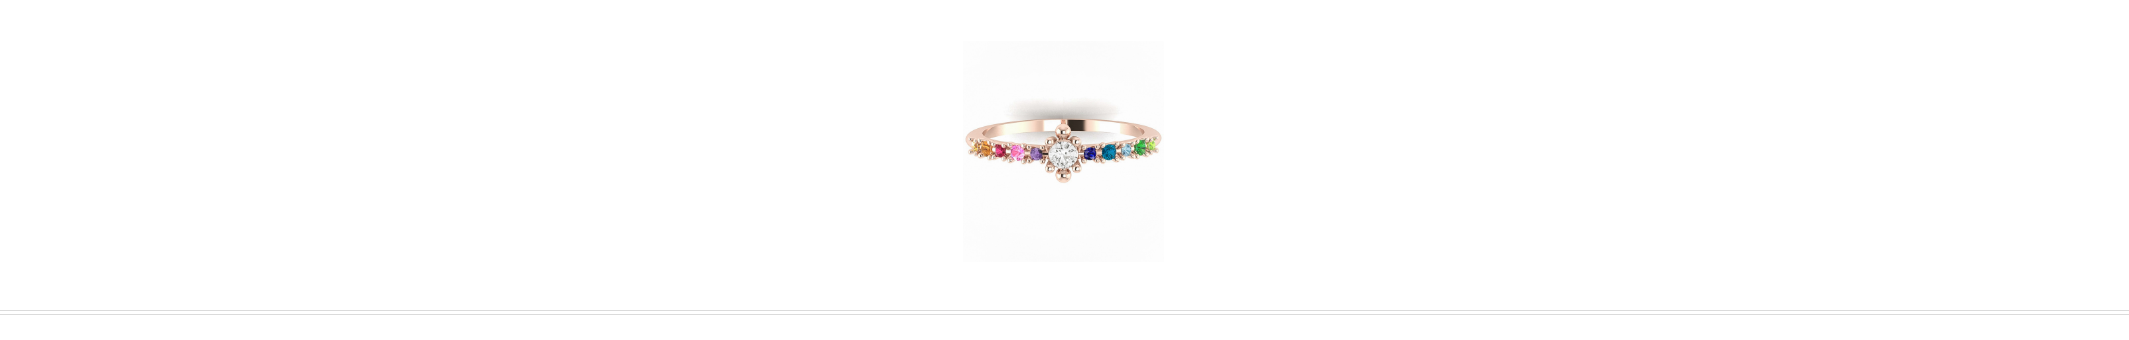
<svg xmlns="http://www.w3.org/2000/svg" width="2129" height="340">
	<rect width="100%" height="100%" fill="#FFFFFF" />
	<image x="963" y="41" width="201" height="221" href="assets/img1.png" />
	<rect x="0" y="310" width="2129" height="1" fill="#DBDBDB" />
	<rect x="0" y="314" width="2129" height="1" fill="#DBDBDB" />
</svg>
